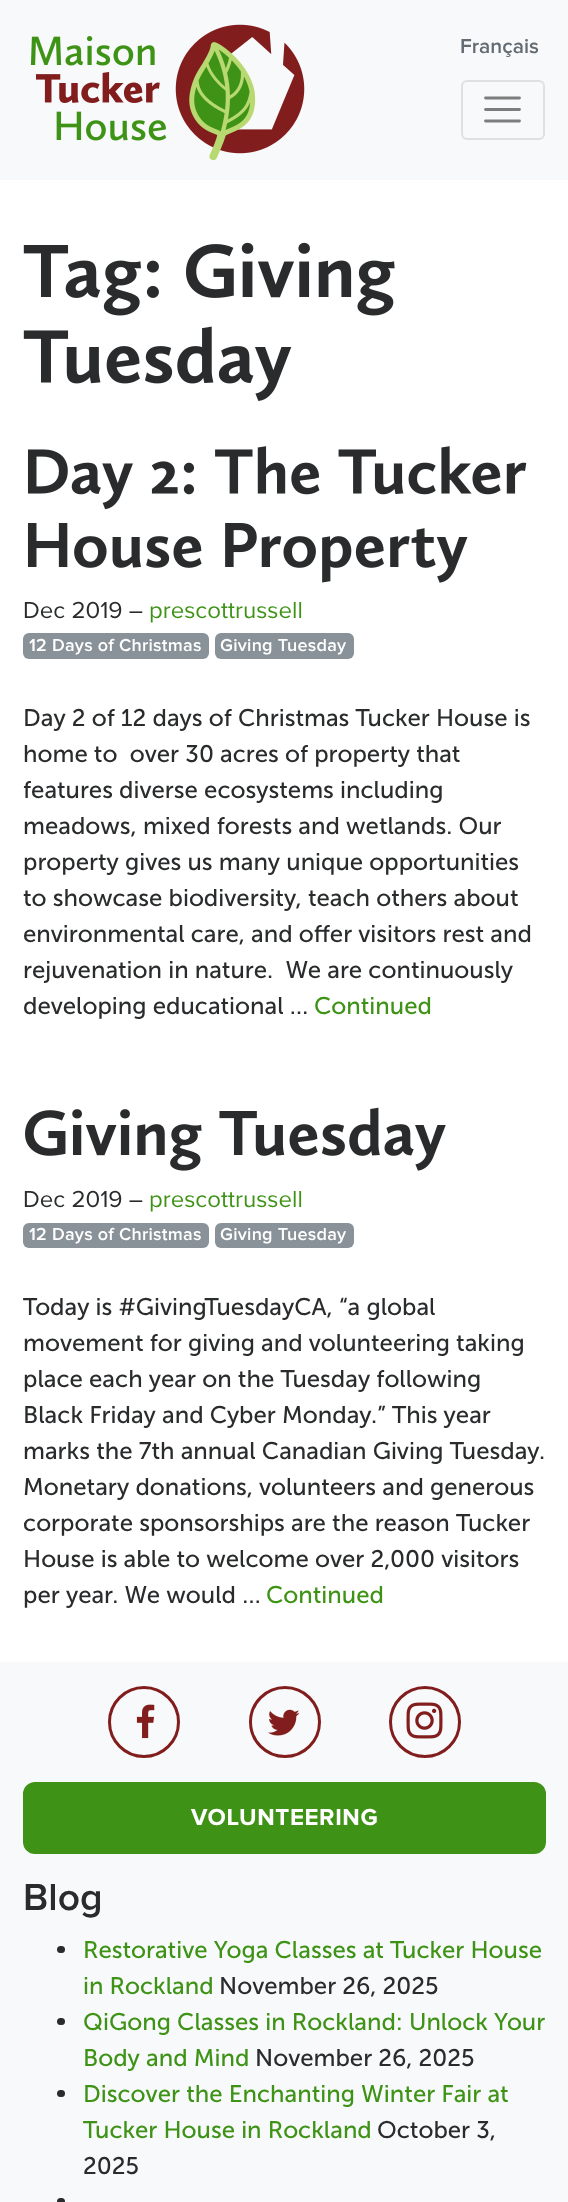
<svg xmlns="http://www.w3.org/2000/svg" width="568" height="2202">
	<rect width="100%" height="100%" fill="#FFFFFF" />
	<rect x="0" y="0" width="568" height="180" fill="#F8F9FA" />
	<image x="30" y="24" width="275" height="137" href="assets/img1.png" />
	<text x="460" y="53" font-family="Proxima Nova" font-size="21" font-weight="600" fill="#636C72">Français</text>
	<rect x="462" y="81" width="82" height="58" rx="5" fill="none" stroke="#DFE0E1" stroke-width="2" />
	<path d="M485.5 98H519.5M485.5 109.5H519.5M485.5 121H519.5" fill="none" stroke="#7C7D7D" stroke-width="2.8" stroke-linecap="round" />
	<image x="23" y="245" width="136" height="71" href="assets/img2.png" />
	<image x="186" y="242" width="209" height="74" href="assets/img3.png" />
	<image x="23" y="326" width="269" height="75" href="assets/img4.png" />
	<image x="27" y="446" width="500" height="64" href="assets/img5.png" />
	<image x="27" y="523" width="441" height="60" href="assets/img6.png" />
	<text x="23" y="618" font-family="Proxima Nova" font-size="24" fill="#292B2C">Dec 2019 –</text>
	<text x="149" y="618" font-family="Proxima Nova" font-size="24" fill="#3E9316">prescottrussell</text>
	<rect x="23" y="633" width="186" height="26" rx="6" fill="#899299" />
	<text x="29" y="651" font-family="Proxima Nova" font-size="18" font-weight="600" letter-spacing="0.25" fill="#FFFFFF">12 Days of Christmas</text>
	<rect x="215" y="633" width="139" height="26" rx="6" fill="#899299" />
	<text x="220" y="651" font-family="Proxima Nova" font-size="18" font-weight="600" letter-spacing="0.25" fill="#FFFFFF">Giving Tuesday</text>
	<g font-family="Museo Sans" font-size="24" fill="#292B2C">
		<text x="23" y="726">Day 2 of 12 days of Christmas Tucker House is</text>
		<text x="23" y="762" xml:space="preserve">home to  over 30 acres of property that</text>
		<text x="23" y="798">features diverse ecosystems including</text>
		<text x="23" y="834">meadows, mixed forests and wetlands. Our</text>
		<text x="23" y="870">property gives us many unique opportunities</text>
		<text x="23" y="906">to showcase biodiversity, teach others about</text>
		<text x="23" y="942">environmental care, and offer visitors rest and</text>
		<text x="23" y="978" xml:space="preserve">rejuvenation in nature.  We are continuously</text>
		<text x="23" y="1014">developing educational …</text>
	</g>
	<text x="314" y="1014" font-family="Museo Sans" font-size="24" fill="#3E9316">Continued</text>
	<image x="25" y="1107" width="421" height="64" href="assets/img7.png" />
	<text x="23" y="1207" font-family="Proxima Nova" font-size="24" fill="#292B2C">Dec 2019 –</text>
	<text x="149" y="1207" font-family="Proxima Nova" font-size="24" fill="#3E9316">prescottrussell</text>
	<rect x="23" y="1223" width="186" height="25" rx="6" fill="#899299" />
	<text x="29" y="1240" font-family="Proxima Nova" font-size="18" font-weight="600" letter-spacing="0.25" fill="#FFFFFF">12 Days of Christmas</text>
	<rect x="215" y="1223" width="139" height="25" rx="6" fill="#899299" />
	<text x="220" y="1240" font-family="Proxima Nova" font-size="18" font-weight="600" letter-spacing="0.25" fill="#FFFFFF">Giving Tuesday</text>
	<g font-family="Museo Sans" font-size="24" fill="#292B2C">
		<text x="23" y="1315">Today is #GivingTuesdayCA, “a global</text>
		<text x="23" y="1351">movement for giving and volunteering taking</text>
		<text x="23" y="1387">place each year on the Tuesday following</text>
		<text x="23" y="1423">Black Friday and Cyber Monday.” This year</text>
		<text x="23" y="1459">marks the 7th annual Canadian Giving Tuesday.</text>
		<text x="23" y="1495">Monetary donations, volunteers and generous</text>
		<text x="23" y="1531">corporate sponsorships are the reason Tucker</text>
		<text x="23" y="1567">House is able to welcome over 2,000 visitors</text>
		<text x="23" y="1603">per year. We would …</text>
	</g>
	<text x="266" y="1603" font-family="Museo Sans" font-size="24" fill="#3E9316">Continued</text>
	<rect x="0" y="1662" width="568" height="540" fill="#F8F9FA" />
	<circle cx="144" cy="1722" r="34.5" fill="none" stroke="#821D1D" stroke-width="3" />
	<image x="136" y="1704" width="19" height="35" href="assets/img8.png" />
	<circle cx="285" cy="1722" r="34.5" fill="none" stroke="#821D1D" stroke-width="3" />
	<image x="268" y="1709" width="32" height="27" href="assets/img9.png" />
	<circle cx="425" cy="1722" r="34.5" fill="none" stroke="#821D1D" stroke-width="3" />
	<image x="406" y="1702" width="37" height="37" href="assets/img10.png" />
	<rect x="24.5" y="1783.5" width="520" height="69" rx="10.5" fill="#3E9316" stroke="#3E9316" stroke-width="3" />
	<text x="191" y="1825" font-family="Proxima Nova" font-size="24" font-weight="700" letter-spacing="0.6" fill="#FFFFFF">VOLUNTEERING</text>
	<text x="23" y="1910" font-family="Proxima Nova" font-size="39" font-weight="600" fill="#292B2C">Blog</text>
	<rect x="57" y="1946" width="8" height="7" rx="3.5" fill="#292B2C" />
	<g font-family="Museo Sans" font-size="24" fill="#3E9316">
		<text x="83" y="1958">Restorative Yoga Classes at Tucker House</text>
		<text x="83" y="1994">in Rockland</text>
	</g>
	<text x="219" y="1994" font-family="Museo Sans" font-size="24" fill="#292B2C">November 26, 2025</text>
	<rect x="57" y="2018" width="8" height="7" rx="3.5" fill="#292B2C" />
	<g font-family="Museo Sans" font-size="24" fill="#3E9316">
		<text x="83" y="2030">QiGong Classes in Rockland: Unlock Your</text>
		<text x="83" y="2066">Body and Mind</text>
	</g>
	<text x="255" y="2066" font-family="Museo Sans" font-size="24" fill="#292B2C">November 26, 2025</text>
	<rect x="57" y="2090" width="8" height="7" rx="3.5" fill="#292B2C" />
	<g font-family="Museo Sans" font-size="24" fill="#3E9316">
		<text x="83" y="2102">Discover the Enchanting Winter Fair at</text>
		<text x="83" y="2138">Tucker House in Rockland</text>
	</g>
	<g font-family="Museo Sans" font-size="24" fill="#292B2C">
		<text x="377" y="2138">October 3,</text>
		<text x="83" y="2174">2025</text>
	</g>
	<rect x="57" y="2198" width="8" height="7" rx="3.5" fill="#292B2C" />
</svg>
